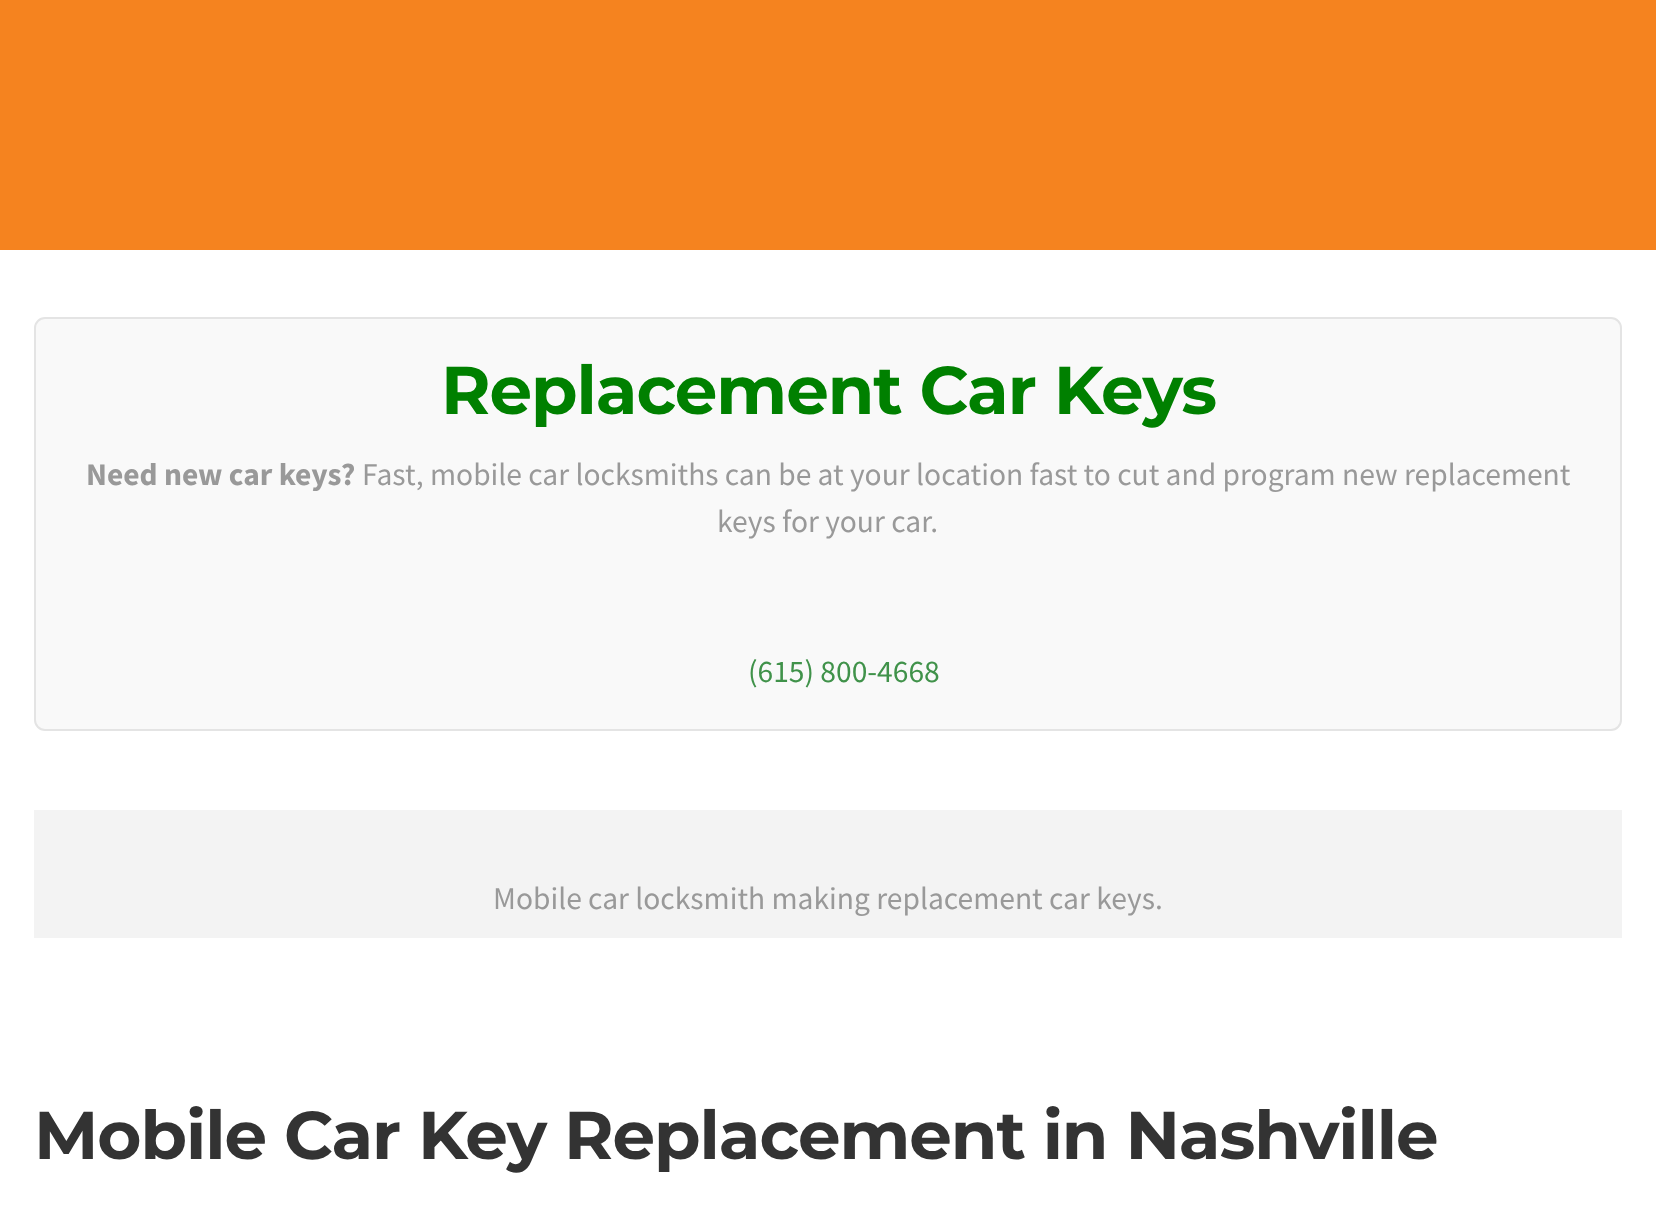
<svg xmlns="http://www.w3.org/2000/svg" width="1656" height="1220">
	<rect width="100%" height="100%" fill="#FFFFFF" />
	<rect x="0" y="0" width="1656" height="250" fill="#F5831F" />
	<rect x="35" y="318" width="1586" height="412" rx="10" fill="#F9F9F9" stroke="#E4E4E4" stroke-width="2" />
	<text x="441" y="414" font-family="Montserrat" font-size="67.5" font-weight="700" letter-spacing="-1.1" fill="#008000">Replacement Car Keys</text>
	<text x="86" y="485" font-family="Source Sans Pro" font-size="31.5" font-weight="700" fill="#999999">Need new car keys?</text>
	<g font-family="Source Sans Pro" font-size="31.5" fill="#999999">
		<text x="362" y="485">Fast, mobile car locksmiths can be at your location fast to cut and program new replacement</text>
		<text x="717" y="532">keys for your car.</text>
	</g>
	<text x="748" y="682" font-family="Source Sans Pro" font-size="31.5" fill="#40924A">(615) 800-4668</text>
	<rect x="34" y="810" width="1588" height="128" fill="#F3F3F3" />
	<text x="493" y="909" font-family="Source Sans Pro" font-size="31.5" fill="#999999">Mobile car locksmith making replacement car keys.</text>
	<text x="34" y="1159" font-family="Montserrat" font-size="67.5" font-weight="700" letter-spacing="-1.1" fill="#333333">Mobile Car Key Replacement in Nashville</text>
</svg>
